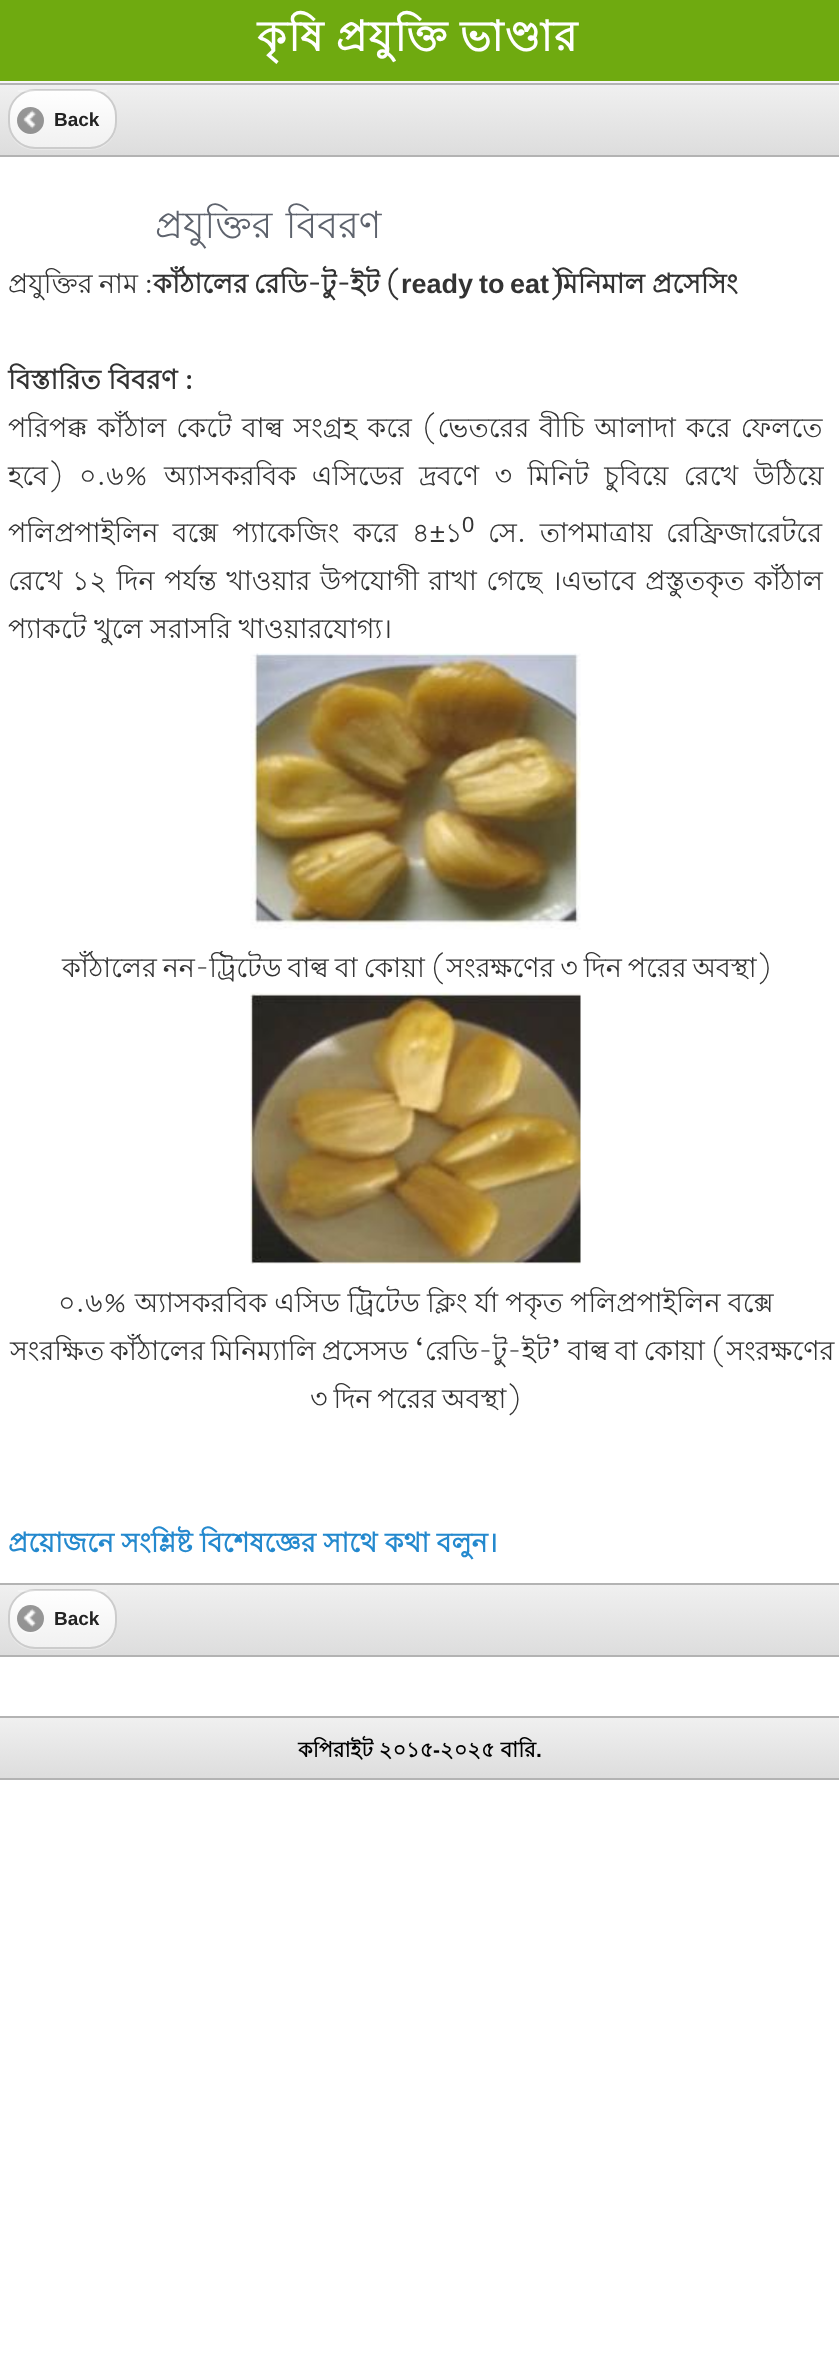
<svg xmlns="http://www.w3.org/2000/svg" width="839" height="2377">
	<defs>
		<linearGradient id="g1" gradientUnits="userSpaceOnUse" x1="420" y1="84" x2="420" y2="155"><stop offset="0" stop-color="#F0F0F0" /><stop offset="1" stop-color="#DDDDDD" /></linearGradient>
		<linearGradient id="g2" gradientUnits="userSpaceOnUse" x1="62" y1="90" x2="62" y2="147"><stop offset="0" stop-color="#FFFFFF" /><stop offset="1" stop-color="#F1F1F1" /></linearGradient>
		<linearGradient id="g3" gradientUnits="userSpaceOnUse" x1="420" y1="1584" x2="420" y2="1655"><stop offset="0" stop-color="#F0F0F0" /><stop offset="1" stop-color="#DDDDDD" /></linearGradient>
		<linearGradient id="g4" gradientUnits="userSpaceOnUse" x1="62" y1="1590" x2="62" y2="1647"><stop offset="0" stop-color="#FFFFFF" /><stop offset="1" stop-color="#F1F1F1" /></linearGradient>
		<linearGradient id="g5" gradientUnits="userSpaceOnUse" x1="420" y1="1718" x2="420" y2="1778"><stop offset="0" stop-color="#F0F0F0" /><stop offset="1" stop-color="#DDDDDD" /></linearGradient>
	</defs>
	<rect width="100%" height="100%" fill="#FFFFFF" />
	<rect x="0" y="81" width="839" height="2" fill="#F6F6F7" />
	<rect x="0" y="0" width="839" height="81" fill="#6FAA10" />
	<text x="257" y="51" word-spacing="-2" font-family="Lohit Bengali" font-size="42" font-weight="700" letter-spacing="1.5" fill="#FFFFFF">কৃষি প্রযুক্তি ভাণ্ডার</text>
	<rect x="0" y="85" width="839" height="70" fill="url(#g1)" />
	<rect x="0" y="83" width="839" height="2" fill="#B3B3B3" />
	<rect x="0" y="155" width="839" height="2" fill="#B3B3B3" />
	<path d="M9 131C12 142 23 150 35 150H90C105 150 117 138 117 123V122C117 136 105 148 90 148H34C23 148 13 141 9 131Z" fill="#FFFFFF" fill-opacity="0.3" />
	<rect x="9" y="90" width="107" height="57" rx="26" fill="url(#g2)" />
	<rect x="9" y="90" width="107" height="58" rx="26" fill="none" stroke="#CCCCCC" stroke-width="2" />
	<rect x="18" y="90" width="89" height="2" fill="#FFFFFF" fill-opacity="0.3" />
	<path d="M17.5 125C18 128 20 130.5 22 132C33 140.5 48 129 43 116.5C47.5 132.5 23.5 140.5 17.5 125Z" fill="#FFFFFF" fill-opacity="0.4" />
	<circle cx="30.5" cy="120.5" r="13.5" fill="#000000" fill-opacity="0.4" />
	<image x="23" y="110" width="14" height="19" href="assets/img1.png" />
	<text x="54" y="126" font-family="Liberation Sans" font-size="19" font-weight="700" fill="#222222">Back</text>
	<text x="155" y="238" word-spacing="3" font-family="Lohit Bengali" font-size="37.5" fill="#5E636D">প্রযুক্তির বিবরণ</text>
	<g font-family="Lohit Bengali" font-size="27" fill="#333333">
		<text x="8" y="293" word-spacing="-1">প্রযুক্তির নাম</text>
		<text x="144" y="293">:</text>
	</g>
	<g font-family="Lohit Bengali" font-size="27" font-weight="700" fill="#333333">
		<text x="153" y="293" word-spacing="-1.6">কাঁঠালের রেডি-টু-ইট (</text>
		<text x="549" y="293">)</text>
		<text x="555" y="293">মিনিমাল প্রসেসিং</text>
	</g>
	<g font-family="Liberation Sans" font-size="27" font-weight="700" fill="#333333">
		<text x="401" y="293">ready</text>
		<text x="479" y="293">to</text>
		<text x="510" y="293">eat</text>
	</g>
	<g font-family="Lohit Bengali" font-size="27" font-weight="700" fill="#333333">
		<text x="8" y="389">বিস্তারিত বিবরণ</text>
		<text x="184" y="389">:</text>
	</g>
	<g font-family="Lohit Bengali" font-size="27" fill="#333333">
		<text x="8" y="437" word-spacing="2.6">পরিপক্ক কাঁঠাল কেটে বাল্ব সংগ্রহ করে (ভেতরের বীচি আলাদা করে ফেলতে</text>
		<text x="8" y="485" word-spacing="8">হবে) ০.৬% অ্যাসকরবিক এসিডের দ্রবণে ৩ মিনিট চুবিয়ে রেখে উঠিয়ে</text>
		<text x="8" y="542" word-spacing="6.5">পলিপ্রপাইলিন বক্সে প্যাকেজিং করে ৪</text>
	</g>
	<text x="430" y="542" font-family="Liberation Sans" font-size="27" fill="#333333">±</text>
	<text x="445" y="542" font-family="Lohit Bengali" font-size="27" fill="#333333">১</text>
	<text x="462" y="532" font-family="Liberation Sans" font-size="22" fill="#333333">0</text>
	<g font-family="Lohit Bengali" font-size="27" fill="#333333">
		<text x="488" y="542" word-spacing="6">সে. তাপমাত্রায় রেফ্রিজারেটরে</text>
		<text x="8" y="590" word-spacing="2.1">রেখে ১২ দিন পর্যন্ত খাওয়ার উপযোগী রাখা গেছে ।এভাবে প্রস্তুতকৃত কাঁঠাল</text>
		<text x="8" y="638">প্যাকটে খুলে সরাসরি খাওয়ারযোগ্য।</text>
	</g>
	<image x="250" y="653" width="331" height="277" href="assets/img2.png" />
	<text x="62" y="977" word-spacing="-1.6" font-family="Lohit Bengali" font-size="27" fill="#333333">কাঁঠালের নন-ট্রিটেড বাল্ব বা কোয়া (সংরক্ষণের ৩ দিন পরের অবস্থা)</text>
	<image x="250" y="992" width="331" height="272" href="assets/img3.png" />
	<g font-family="Lohit Bengali" font-size="27" fill="#333333">
		<text x="58" y="1312" word-spacing="-0.25">০.৬% অ্যাসকরবিক এসিড ট্রিটেড ক্লিং র্যা পকৃত পলিপ্রপাইলিন বক্সে</text>
		<text x="10" y="1360" word-spacing="-1.6">সংরক্ষিত কাঁঠালের মিনিম্যালি প্রসেসড ‘রেডি-টু-ইট’ বাল্ব বা কোয়া (সংরক্ষণের</text>
		<text x="310" y="1408" word-spacing="-1.6">৩ দিন পরের অবস্থা)</text>
	</g>
	<text x="8" y="1552" font-family="Lohit Bengali" font-size="27" font-weight="700" fill="#2489CE">প্রয়োজনে সংশ্লিষ্ট বিশেষজ্ঞের সাথে কথা বলুন।</text>
	<rect x="0" y="1585" width="839" height="70" fill="url(#g3)" />
	<rect x="0" y="1583" width="839" height="2" fill="#B3B3B3" />
	<rect x="0" y="1655" width="839" height="2" fill="#B3B3B3" />
	<path d="M9 1631C12 1642 23 1650 35 1650H90C105 1650 117 1638 117 1623V1622C117 1636 105 1648 90 1648H34C23 1648 13 1641 9 1631Z" fill="#FFFFFF" fill-opacity="0.3" />
	<rect x="9" y="1590" width="107" height="57" rx="26" fill="url(#g4)" />
	<rect x="9" y="1590" width="107" height="58" rx="26" fill="none" stroke="#CCCCCC" stroke-width="2" />
	<rect x="18" y="1590" width="89" height="2" fill="#FFFFFF" fill-opacity="0.3" />
	<path d="M17 1623C17.5 1626 19.5 1628.5 21.5 1631C32 1639.5 47.5 1629 43.5 1616C46 1632.5 22.5 1638.5 17 1623Z" fill="#FFFFFF" fill-opacity="0.4" />
	<circle cx="30.5" cy="1618.5" r="13.5" fill="#000000" fill-opacity="0.4" />
	<image x="23" y="1608" width="14" height="20" href="assets/img4.png" />
	<text x="54" y="1625" font-family="Liberation Sans" font-size="19" font-weight="700" fill="#222222">Back</text>
	<rect x="0" y="1718" width="839" height="60" fill="url(#g5)" />
	<rect x="0" y="1716" width="839" height="2" fill="#B3B3B3" />
	<rect x="0" y="1778" width="839" height="2" fill="#B3B3B3" />
	<text x="298" y="1757" font-family="Lohit Bengali" font-size="21" font-weight="700" fill="#000000">কপিরাইট ২০১৫</text>
	<text x="433" y="1757" font-family="Liberation Sans" font-size="21" font-weight="700" fill="#000000">-</text>
	<text x="440" y="1757" font-family="Lohit Bengali" font-size="21" font-weight="700" fill="#000000">২০২৫ বারি</text>
	<text x="536" y="1757" font-family="Liberation Sans" font-size="21" font-weight="700" fill="#000000">.</text>
</svg>
